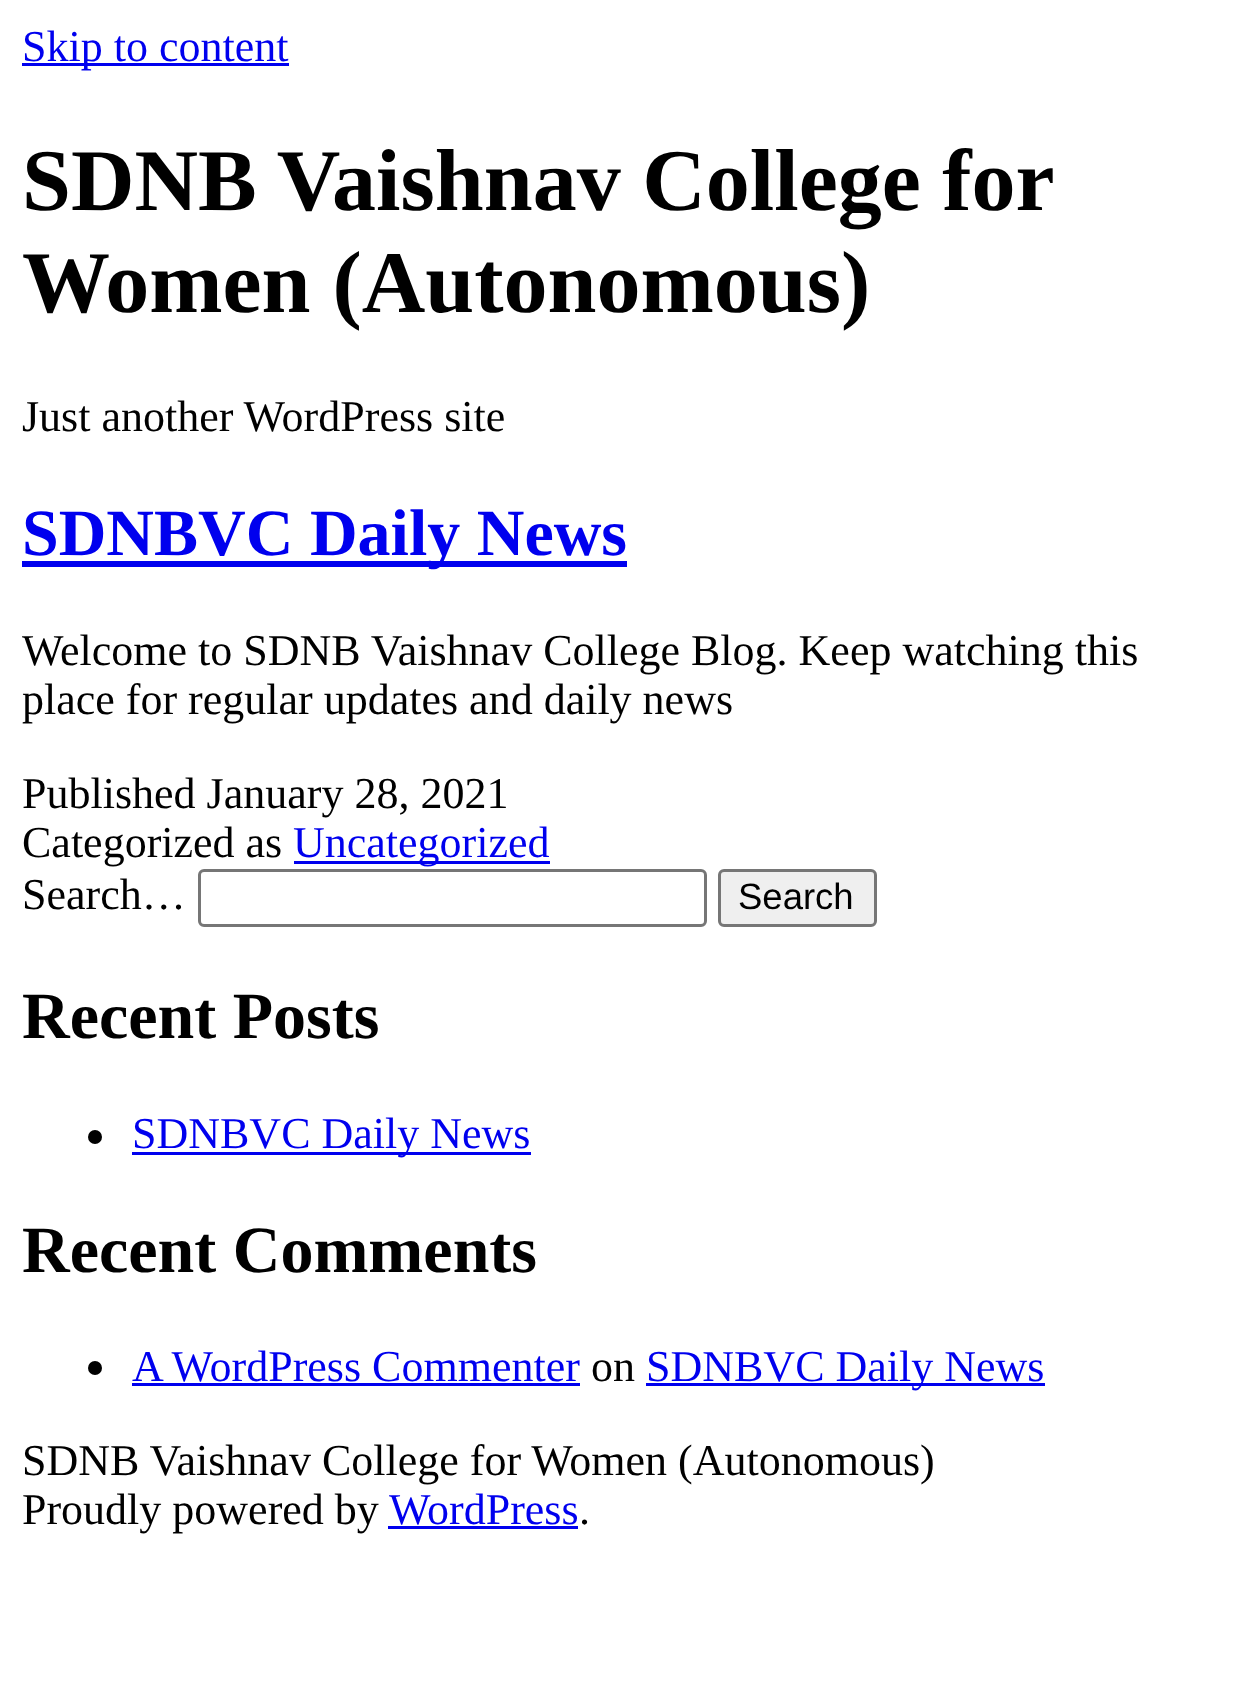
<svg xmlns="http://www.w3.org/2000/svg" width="1254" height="1697">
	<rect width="100%" height="100%" fill="#FFFFFF" />
	<rect x="22" y="63" width="267" height="3" fill="#0000EE" />
	<text x="22" y="61" font-family="Liberation Serif" font-size="44" fill="#0000EE">Skip to content</text>
	<g font-family="Liberation Serif" font-size="88" font-weight="700" fill="#000000">
		<text x="22" y="210" word-spacing="-0.5">SDNB Vaishnav College for</text>
		<text x="22" y="312">Women (Autonomous)</text>
	</g>
	<text x="22" y="431" font-family="Liberation Serif" font-size="44" fill="#000000">Just another WordPress site</text>
	<rect x="22" y="561" width="605" height="6" fill="#0000EE" />
	<text x="22" y="555" font-family="Liberation Serif" font-size="66" font-weight="700" fill="#0000EE">SDNBVC Daily News</text>
	<g font-family="Liberation Serif" font-size="44" fill="#000000">
		<text x="22" y="665">Welcome to SDNB Vaishnav College Blog. Keep watching this</text>
		<text x="22" y="714">place for regular updates and daily news</text>
		<text x="22" y="808">Published January 28, 2021</text>
		<text x="22" y="857">Categorized as</text>
	</g>
	<rect x="294" y="861" width="256" height="3" fill="#0000EE" />
	<text x="293" y="857" font-family="Liberation Serif" font-size="44" fill="#0000EE">Uncategorized</text>
	<text x="22" y="909" font-family="Liberation Serif" font-size="44" fill="#000000">Search…</text>
	<rect x="199.5" y="870.5" width="506" height="55" rx="4.5" fill="none" stroke="#767676" stroke-width="3" />
	<rect x="719.5" y="870.5" width="156" height="55" rx="4.5" fill="#EFEFEF" stroke="#767676" stroke-width="3" />
	<text x="738" y="909" font-family="Liberation Sans" font-size="36.5" fill="#000000">Search</text>
	<text x="22" y="1038" font-family="Liberation Serif" font-size="66" font-weight="700" fill="#000000">Recent Posts</text>
	<circle cx="95" cy="1137" r="7" fill="#000000" />
	<rect x="132" y="1152" width="399" height="3" fill="#0000EE" />
	<text x="132" y="1148" font-family="Liberation Serif" font-size="44" fill="#0000EE">SDNBVC Daily News</text>
	<text x="22" y="1272" font-family="Liberation Serif" font-size="66" font-weight="700" fill="#000000">Recent Comments</text>
	<circle cx="95" cy="1368" r="7" fill="#000000" />
	<text x="132" y="1381" font-family="Liberation Serif" font-size="44" fill="#0000EE">A WordPress Commenter</text>
	<rect x="132" y="1383" width="448" height="3" fill="#0000EE" />
	<text x="591" y="1381" font-family="Liberation Serif" font-size="44" fill="#000000">on</text>
	<rect x="646" y="1383" width="399" height="3" fill="#0000EE" />
	<text x="646" y="1381" font-family="Liberation Serif" font-size="44" fill="#0000EE">SDNBVC Daily News</text>
	<g font-family="Liberation Serif" font-size="44" fill="#000000">
		<text x="22" y="1475">SDNB Vaishnav College for Women (Autonomous)</text>
		<text x="22" y="1524">Proudly powered by</text>
	</g>
	<text x="389" y="1524" font-family="Liberation Serif" font-size="44" fill="#0000EE">WordPress</text>
	<rect x="388" y="1526" width="190" height="3" fill="#0000EE" />
	<text x="579" y="1524" font-family="Liberation Serif" font-size="44" fill="#000000">.</text>
</svg>
